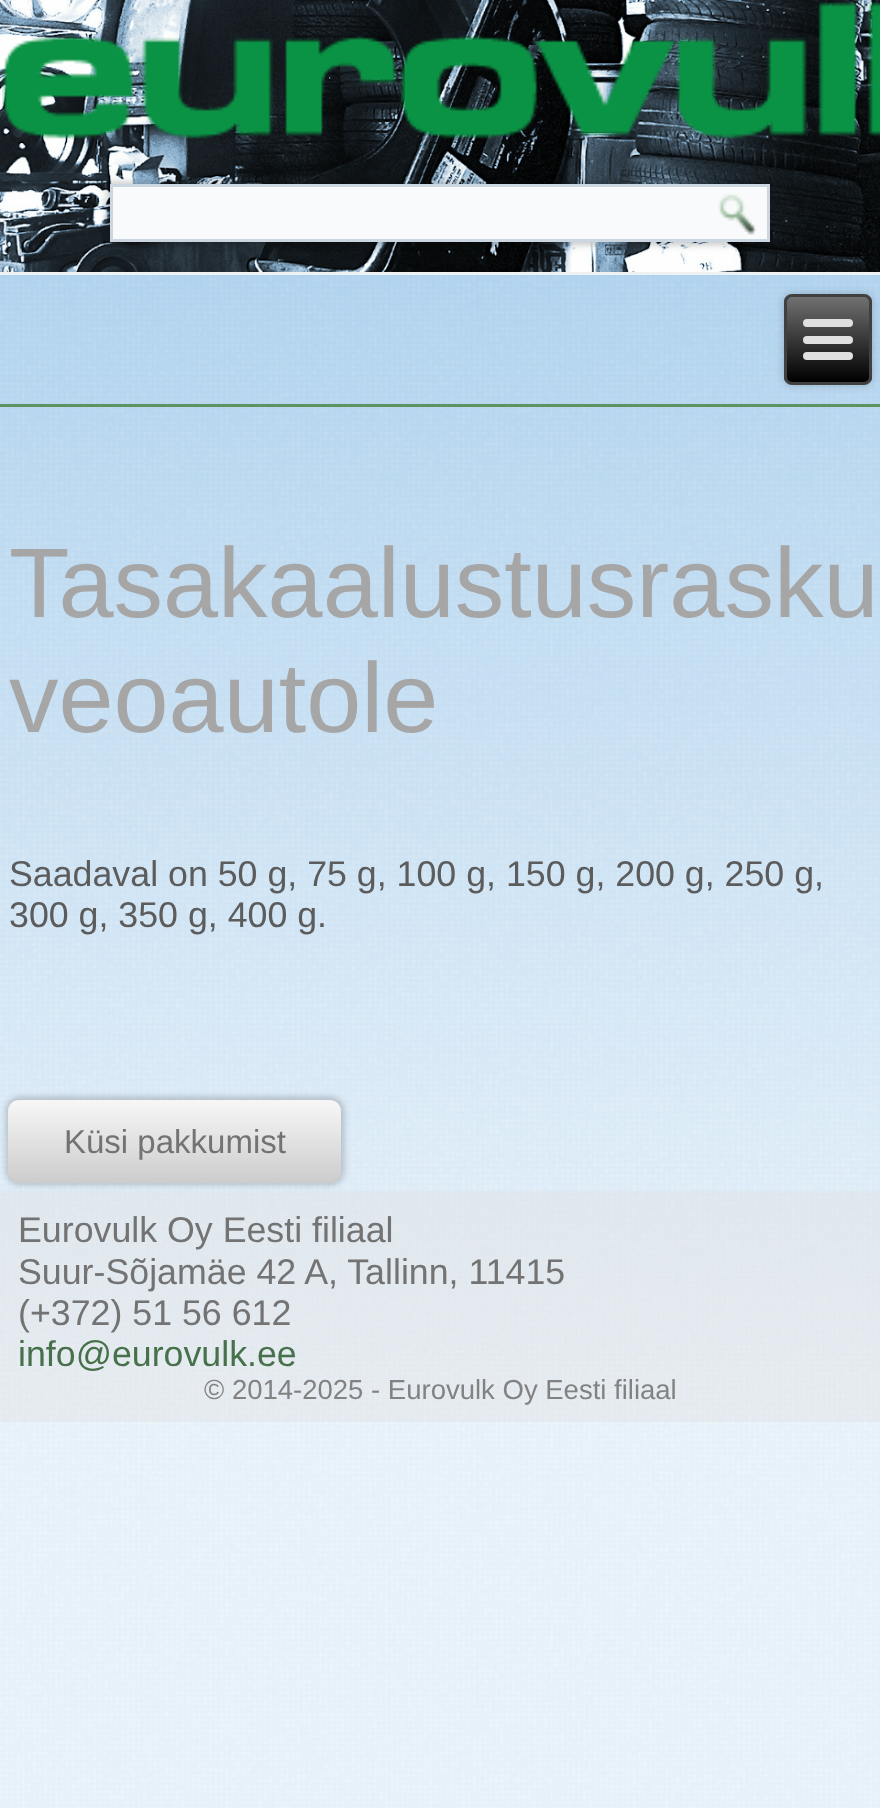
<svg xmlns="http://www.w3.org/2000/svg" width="880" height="1808">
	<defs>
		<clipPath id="clip1"><rect x="784" y="294" width="88" height="91" rx="8" /></clipPath>
		<linearGradient id="g1" gradientUnits="userSpaceOnUse" x1="828" y1="297" x2="828" y2="382"><stop offset="0" stop-color="#707070" /><stop offset="1" stop-color="#000000" /></linearGradient>
		<linearGradient id="g2" gradientUnits="userSpaceOnUse" x1="175" y1="1100" x2="175" y2="1183"><stop offset="0" stop-color="#F7F7F7" /><stop offset="1" stop-color="#CCCCCC" /></linearGradient>
	</defs>
	<rect width="100%" height="100%" fill="#FFFFFF" />
	<image x="0" y="275" width="880" height="1533" href="assets/img1.png" />
	<image x="0" y="0" width="880" height="272" href="assets/img2.png" />
	<rect x="0" y="272" width="880" height="3" fill="#EFF2F5" />
	<image x="2" y="2" width="878" height="137" href="assets/img3.png" />
	<rect x="107" y="182" width="666" height="63" fill="#000000" fill-opacity="0.2" filter="blur(3px)" />
	<rect x="111.5" y="185.5" width="657" height="55" fill="#F9FAFB" stroke="#CCD6E0" stroke-width="3" />
	<image x="718" y="194" width="39" height="41" href="assets/img4.png" />
	<rect x="0" y="404" width="880" height="3" fill="#5C9361" />
	<rect x="784" y="294" width="88" height="91" rx="8" fill="#000000" fill-opacity="0.2" filter="blur(4px)" />
	<g clip-path="url(#clip1)">
		<rect x="784" y="297" width="88" height="85" fill="url(#g1)" />
	</g>
	<rect x="785.5" y="295.5" width="85" height="88" rx="6.5" fill="none" stroke="#404040" stroke-width="3" />
	<rect x="803" y="319" width="50" height="8" rx="4" fill="#E0E0E0" />
	<rect x="803" y="336" width="50" height="8" rx="4" fill="#E0E0E0" />
	<rect x="803" y="352" width="50" height="8" rx="4" fill="#E0E0E0" />
	<g font-family="Liberation Sans" font-size="99" fill="#A6A6A6">
		<text x="9" y="617">Tasakaalustusrasku</text>
		<text x="9" y="732">veoautole</text>
	</g>
	<g font-family="Liberation Sans" font-size="35.75" fill="#5C5C5C">
		<text x="9" y="886">Saadaval on 50 g, 75 g, 100 g, 150 g, 200 g, 250 g,</text>
		<text x="9" y="927">300 g, 350 g, 400 g.</text>
	</g>
	<rect x="6" y="1097" width="338" height="88" rx="14" fill="#000000" fill-opacity="0.2" filter="blur(3px)" />
	<rect x="8" y="1100" width="333" height="83" rx="11" fill="url(#g2)" />
	<text x="64" y="1153" font-family="Liberation Sans" font-size="33" fill="#737373">Küsi pakkumist</text>
	<rect x="0" y="1191" width="880" height="231" fill="#E0E0E0" fill-opacity="0.4" />
	<g font-family="Liberation Sans" font-size="35.75" fill="#737373">
		<text x="18" y="1242">Eurovulk Oy Eesti filiaal</text>
		<text x="18" y="1284">Suur-Sõjamäe 42 A, Tallinn, 11415</text>
		<text x="18" y="1325">(+372) 51 56 612</text>
	</g>
	<text x="18" y="1366" font-family="Liberation Sans" font-size="35.75" fill="#47714A">info@eurovulk.ee</text>
	<text x="204" y="1399" font-family="Liberation Sans" font-size="27.5" fill="#828282">© 2014-2025 - Eurovulk Oy Eesti filiaal</text>
</svg>
